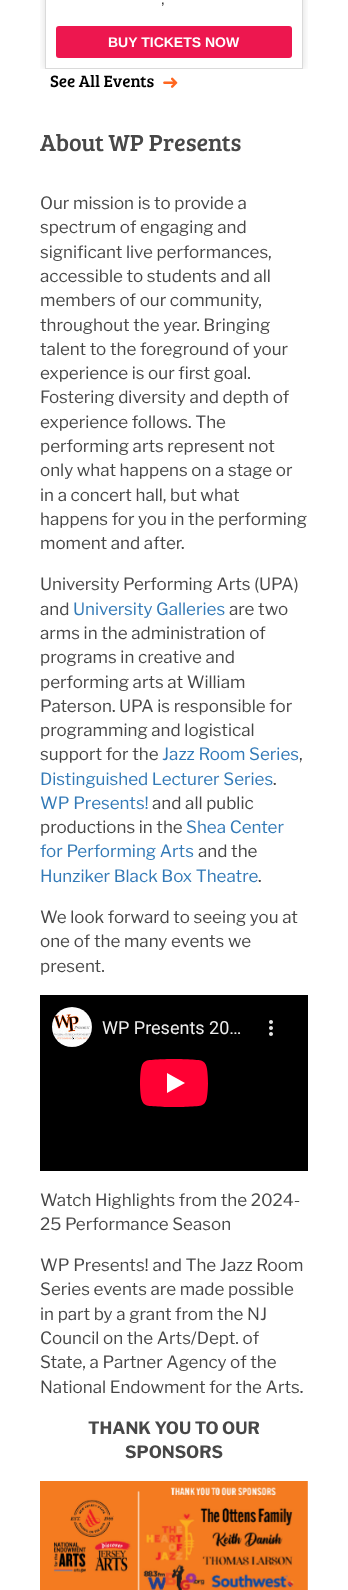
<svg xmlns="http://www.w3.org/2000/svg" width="348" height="1590">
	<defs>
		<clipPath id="clip1"><rect x="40" y="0" width="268" height="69" /></clipPath>
		<clipPath id="clip2"><path d="M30 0H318V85H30ZM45-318H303V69H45Z" clip-rule="evenodd" /></clipPath>
	</defs>
	<rect width="100%" height="100%" fill="#FFFFFF" />
	<g clip-path="url(#clip1)">
		<g clip-path="url(#clip2)">
			<rect x="45" y="-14" width="258" height="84" fill="#000000" fill-opacity="0.14" filter="blur(4.5px)" />
		</g>
	</g>
	<rect x="45.5" y="-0.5" width="257" height="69" fill="none" stroke="#DADADA" />
	<text x="161" y="4" font-family="Liberation Sans" font-size="13" fill="#000000">,</text>
	<rect x="56" y="26" width="236" height="32" rx="3" fill="#ED174F" />
	<text x="108" y="47" font-family="Liberation Sans" font-size="14" font-weight="700" fill="#FFFFFF">BUY TICKETS NOW</text>
	<text x="50" y="87" font-family="Bree Serif" font-size="17" fill="#000000">See All Events</text>
	<text x="162" y="89" font-family="DejaVu Sans" font-size="20" fill="#FF6720">➜</text>
	<text x="40" y="151" font-family="Bree Serif" font-size="24" fill="#484848">About WP Presents</text>
	<g font-family="Libre Franklin" font-size="17" fill="#484848">
		<text x="40" y="209">Our mission is to provide a</text>
		<text x="40" y="233">spectrum of engaging and</text>
		<text x="40" y="258">significant live performances,</text>
		<text x="40" y="282">accessible to students and all</text>
		<text x="40" y="306">members of our community,</text>
		<text x="40" y="331">throughout the year. Bringing</text>
		<text x="40" y="355">talent to the foreground of your</text>
		<text x="40" y="379">experience is our first goal.</text>
		<text x="40" y="403">Fostering diversity and depth of</text>
		<text x="40" y="428">experience follows. The</text>
		<text x="40" y="452">performing arts represent not</text>
		<text x="40" y="476">only what happens on a stage or</text>
		<text x="40" y="501">in a concert hall, but what</text>
		<text x="40" y="525">happens for you in the performing</text>
		<text x="40" y="549">moment and after.</text>
		<text x="40" y="590">University Performing Arts (UPA)</text>
		<text x="40" y="615">and</text>
	</g>
	<text x="73" y="615" font-family="Libre Franklin" font-size="17" fill="#337AB7">University Galleries</text>
	<g font-family="Libre Franklin" font-size="17" fill="#484848">
		<text x="229" y="615">are two</text>
		<text x="40" y="639">arms in the administration of</text>
		<text x="40" y="663">programs in creative and</text>
		<text x="40" y="688">performing arts at William</text>
		<text x="40" y="712">Paterson. UPA is responsible for</text>
		<text x="40" y="736">programming and logistical</text>
		<text x="40" y="760">support for the</text>
	</g>
	<text x="162" y="760" font-family="Libre Franklin" font-size="17" fill="#337AB7">Jazz Room Series</text>
	<text x="299" y="760" font-family="Libre Franklin" font-size="17" fill="#484848">,</text>
	<text x="40" y="785" font-family="Libre Franklin" font-size="17" fill="#337AB7">Distinguished Lecturer Series</text>
	<text x="273" y="785" font-family="Libre Franklin" font-size="17" fill="#484848">.</text>
	<text x="40" y="809" font-family="Libre Franklin" font-size="17" fill="#337AB7">WP Presents!</text>
	<g font-family="Libre Franklin" font-size="17" fill="#484848">
		<text x="152" y="809">and all public</text>
		<text x="40" y="833">productions in the</text>
	</g>
	<g font-family="Libre Franklin" font-size="17" fill="#337AB7">
		<text x="186" y="833">Shea Center</text>
		<text x="40" y="857">for Performing Arts</text>
	</g>
	<text x="198" y="857" font-family="Libre Franklin" font-size="17" fill="#484848">and the</text>
	<text x="40" y="882" font-family="Libre Franklin" font-size="17" fill="#337AB7">Hunziker Black Box Theatre</text>
	<g font-family="Libre Franklin" font-size="17" fill="#484848">
		<text x="258" y="882">.</text>
		<text x="40" y="923">We look forward to seeing you at</text>
		<text x="40" y="947">one of the many events we</text>
		<text x="40" y="972">present.</text>
	</g>
	<image x="40" y="995" width="268" height="176" href="assets/img1.png" />
	<g font-family="Libre Franklin" font-size="17" fill="#484848">
		<text x="40" y="1206">Watch Highlights from the 2024-</text>
		<text x="40" y="1230">25 Performance Season</text>
		<text x="40" y="1271">WP Presents! and The Jazz Room</text>
		<text x="40" y="1295">Series events are made possible</text>
		<text x="40" y="1320">in part by a grant from the NJ</text>
		<text x="40" y="1344">Council on the Arts/Dept. of</text>
		<text x="40" y="1368">State, a Partner Agency of the</text>
		<text x="40" y="1393">National Endowment for the Arts.</text>
	</g>
	<g font-family="Libre Franklin" font-size="17" font-weight="700" fill="#484848">
		<text x="88" y="1434">THANK YOU TO OUR</text>
		<text x="125" y="1458">SPONSORS</text>
	</g>
	<image x="40" y="1481" width="268" height="109" href="assets/img2.png" />
</svg>
